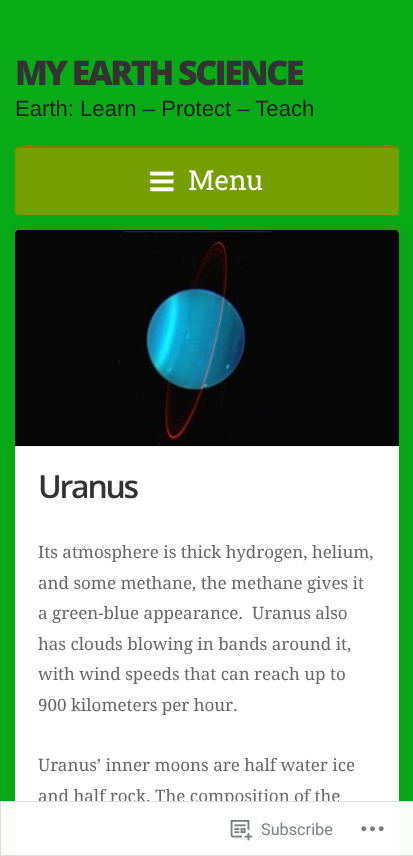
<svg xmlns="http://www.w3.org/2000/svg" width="413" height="856">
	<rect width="100%" height="100%" fill="#08AA18" />
	<text x="15" y="85" font-family="Open Sans" font-size="34" font-weight="800" letter-spacing="-2.5" fill="#333333">MY EARTH SCIENCE</text>
	<text x="15" y="116" font-family="Liberation Sans" font-size="22.1" fill="#232323">Earth: Learn – Protect – Teach</text>
	<rect x="15" y="230" width="384" height="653" rx="4" fill="#000000" fill-opacity="0.08" filter="blur(7.5px)" />
	<rect x="15" y="146" width="384" height="69" rx="4" fill="#769E00" />
	<path d="M19 148H395C397 148 399 149 399 151C399 148 398 146 395 146H19C16 146 15 148 15 151C15 149 17 148 19 148Z" fill="#000000" fill-opacity="0.1" />
	<image x="150" y="171" width="24" height="21" href="assets/img1.png" />
	<text x="188" y="190" font-family="Roboto Slab" font-size="27.5" fill="#FFFFFF">Menu</text>
	<rect x="15" y="230" width="384" height="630" rx="4" fill="#FFFFFF" />
	<path d="M19 230H395C397 230 399 232 399 234V446H15V234C15 232 17 230 19 230Z" fill="#000000" />
	<image x="15" y="230" width="384" height="217" href="assets/img2.png" />
	<text x="38" y="498" font-family="Open Sans" font-size="32" font-weight="600" letter-spacing="-2.25" fill="#333333">Uranus</text>
	<g font-family="Droid Serif" font-size="17" fill="#666666">
		<text x="38" y="558">Its atmosphere is thick hydrogen, helium,</text>
		<text x="38" y="589">and some methane, the methane gives it</text>
		<text x="38" y="619" xml:space="preserve">a green-blue appearance.  Uranus also</text>
		<text x="38" y="650">has clouds blowing in bands around it,</text>
		<text x="38" y="680">with wind speeds that can reach up to</text>
		<text x="38" y="711">900 kilometers per hour.</text>
		<text x="38" y="771">Uranus’ inner moons are half water ice</text>
		<text x="38" y="802">and half rock. The composition of the</text>
	</g>
	<rect x="0" y="801" width="413" height="55" fill="#FFFFFF" fill-opacity="0.98" />
	<rect x="0.5" y="801.5" width="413" height="54" fill="none" stroke="#DCDCDE" stroke-opacity="0.98" />
	<image x="230" y="820" width="23" height="21" href="assets/img3.png" />
	<text x="261" y="835" font-family="Roboto" font-size="16.25" fill="#7B7F84">Subscribe</text>
	<image x="361" y="826" width="23" height="6" href="assets/img4.png" />
</svg>
